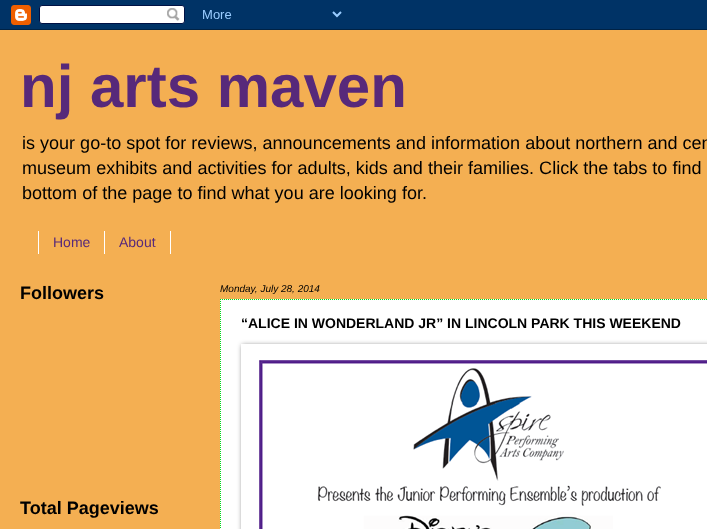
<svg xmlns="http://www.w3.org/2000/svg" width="707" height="529">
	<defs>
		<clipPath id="clip1"><path d="M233 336H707V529H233ZM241 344H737V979H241Z" clip-rule="evenodd" /></clipPath>
	</defs>
	<rect width="100%" height="100%" fill="#F4AF52" />
	<image x="0" y="0" width="707" height="30" href="assets/img1.png" />
	<text x="20" y="107" font-family="Liberation Sans" font-size="60" font-weight="700" fill="#57297A">nj arts maven</text>
	<g font-family="Liberation Sans" font-size="18.05" fill="#000000">
		<text x="22" y="149">is your go-to spot for reviews, announcements and information about northern and cen</text>
		<text x="22" y="174">museum exhibits and activities for adults, kids and their families. Click the tabs to find</text>
		<text x="22" y="199">bottom of the page to find what you are looking for.</text>
	</g>
	<rect x="104" y="231" width="1" height="23" fill="#FFFFFF" />
	<rect x="38" y="231" width="1" height="23" fill="#FFFFFF" />
	<text x="53" y="247" font-family="Liberation Sans" font-size="14" fill="#57297A">Home</text>
	<rect x="170" y="231" width="1" height="23" fill="#FFFFFF" />
	<text x="119" y="247" font-family="Liberation Sans" font-size="14" fill="#57297A">About</text>
	<g font-family="Liberation Sans" font-size="18" font-weight="700" fill="#000000">
		<text x="20" y="299">Followers</text>
		<text x="20" y="514">Total Pageviews</text>
	</g>
	<text x="220" y="292" font-family="Liberation Sans" font-size="10" font-style="italic" fill="#000000">Monday, July 28, 2014</text>
	<rect x="220" y="299" width="487" height="230" fill="#FFFFFF" />
	<path d="M220 299.5H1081" fill="none" stroke="#00D818" stroke-dasharray="1 1" />
	<path d="M220.5 299V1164" fill="none" stroke="#00D818" stroke-dasharray="1 1" />
	<text x="241" y="328" font-family="Liberation Sans" font-size="14" font-weight="700" fill="#000000">“ALICE IN WONDERLAND JR” IN LINCOLN PARK THIS WEEKEND</text>
	<g clip-path="url(#clip1)">
		<rect x="242" y="345" width="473" height="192" fill="#000000" fill-opacity="0.5" filter="blur(2.5px)" />
	</g>
	<image x="259" y="360" width="448" height="169" href="assets/img2.png" />
</svg>
